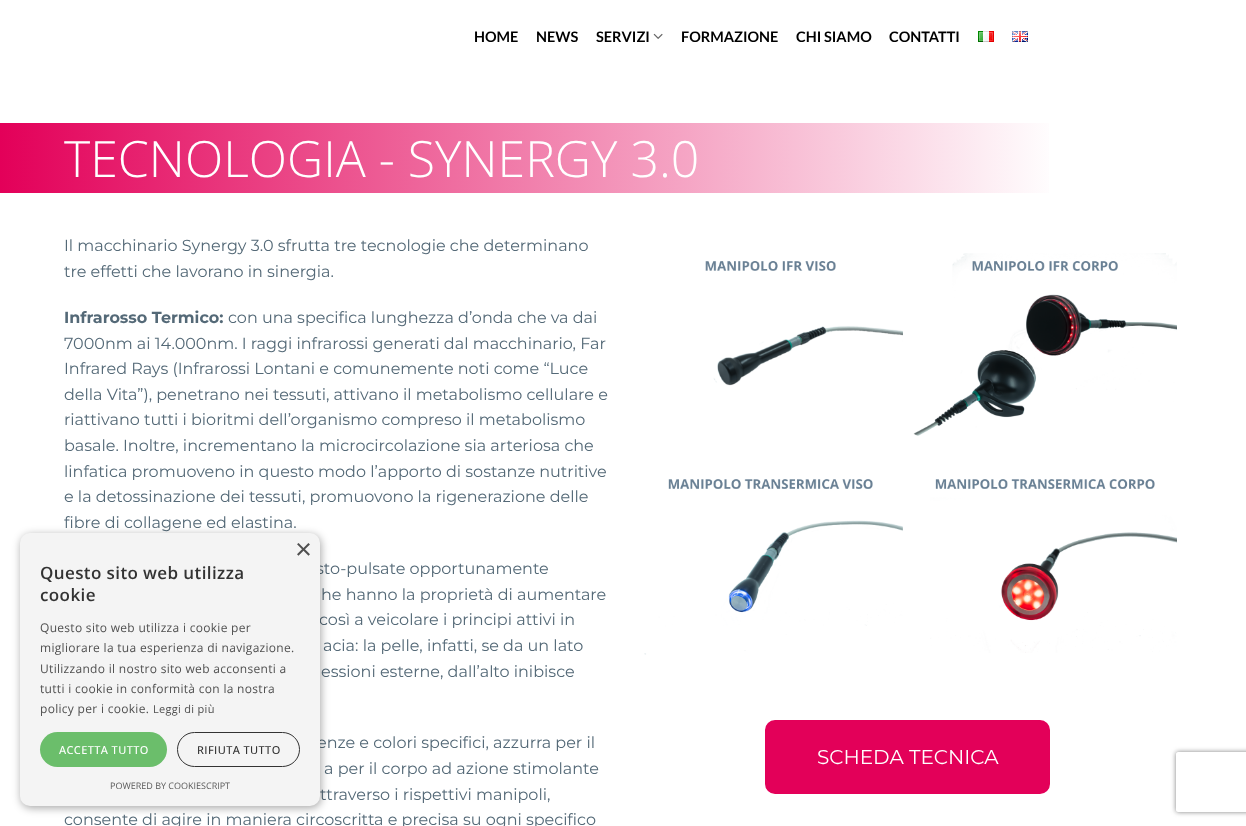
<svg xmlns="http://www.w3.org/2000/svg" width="1246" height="826">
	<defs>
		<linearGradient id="g1" gradientUnits="userSpaceOnUse" x1="0" y1="158" x2="1246" y2="158"><stop offset="0" stop-color="#E30059" /><stop offset="0.85" stop-color="#FFFFFF" /></linearGradient>
		<clipPath id="clip1"><path d="M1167 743H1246V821H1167ZM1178 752H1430C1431 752 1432 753 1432 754V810C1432 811 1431 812 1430 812H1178C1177 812 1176 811 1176 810V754C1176 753 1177 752 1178 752Z" clip-rule="evenodd" /></clipPath>
	</defs>
	<rect width="100%" height="100%" fill="#FFFFFF" />
	<g font-family="Lato" font-size="14.5" font-weight="700" fill="#000000">
		<text x="474" y="42">HOME</text>
		<text x="536" y="42">NEWS</text>
		<text x="596" y="42">SERVIZI</text>
	</g>
	<image x="653" y="33" width="10" height="6" href="assets/img1.png" />
	<g font-family="Lato" font-size="14.5" font-weight="700" fill="#000000">
		<text x="681" y="42">FORMAZIONE</text>
		<text x="796" y="42">CHI SIAMO</text>
		<text x="889" y="42">CONTATTI</text>
	</g>
	<image x="978" y="31" width="16" height="11" href="assets/img2.png" />
	<image x="1012" y="31" width="16" height="11" href="assets/img3.png" />
	<rect x="0" y="123" width="1049" height="70" fill="url(#g1)" />
	<text x="64" y="177" font-family="Open Sans" font-size="50" font-weight="300" fill="#FFFFFF">TECNOLOGIA - SYNERGY 3.0</text>
	<g font-family="Montserrat" font-size="16" fill="#546977">
		<text x="64" y="251">Il macchinario Synergy 3.0 sfrutta tre tecnologie che determinano</text>
		<text x="64" y="277">tre effetti che lavorano in sinergia.</text>
	</g>
	<text x="64" y="323" font-family="Montserrat" font-size="16" font-weight="700" fill="#546977">Infrarosso Termico:</text>
	<g font-family="Montserrat" font-size="16" fill="#546977">
		<text x="228" y="323">con una specifica lunghezza d’onda che va dai</text>
		<text x="64" y="349">7000nm ai 14.000nm. I raggi infrarossi generati dal macchinario, Far</text>
		<text x="64" y="374">Infrared Rays (Infrarossi Lontani e comunemente noti come “Luce</text>
		<text x="64" y="400">della Vita”), penetrano nei tessuti, attivano il metabolismo cellulare e</text>
		<text x="64" y="425">riattivano tutti i bioritmi dell’organismo compreso il metabolismo</text>
		<text x="64" y="451">basale. Inoltre, incrementano la microcircolazione sia arteriosa che</text>
		<text x="64" y="477">linfatica promuoveno in questo modo l’apporto di sostanze nutritive</text>
		<text x="64" y="502">e la detossinazione dei tessuti, promuovono la rigenerazione delle</text>
		<text x="64" y="528">fibre di collagene ed elastina.</text>
		<text x="316" y="574">sto-pulsate opportunamente</text>
		<text x="321" y="600">he hanno la proprietà di aumentare</text>
		<text x="319" y="625">così a veicolare i principi attivi in</text>
		<text x="323" y="651">acia: la pelle, infatti, se da un lato</text>
		<text x="321" y="677">essioni esterne, dall’alto inibisce</text>
		<text x="317" y="748">enze e colori specifici, azzurra per il</text>
		<text x="324" y="774">a per il corpo ad azione stimolante</text>
		<text x="320" y="800">ttraverso i rispettivi manipoli,</text>
		<text x="64" y="825">consente di agire in maniera circoscritta e precisa su ogni specifico</text>
	</g>
	<image x="705" y="261" width="198" height="125" href="assets/img4.png" />
	<image x="644" y="479" width="259" height="176" href="assets/img5.png" />
	<image x="913" y="253" width="264" height="183" href="assets/img6.png" />
	<image x="930" y="479" width="247" height="174" href="assets/img7.png" />
	<rect x="766" y="721" width="283" height="72" rx="9" fill="#E30059" stroke="#E30059" stroke-width="2" />
	<text x="817" y="764" font-family="Montserrat" font-size="20" fill="#FFFFFF">SCHEDA TECNICA</text>
	<rect x="21" y="535" width="300" height="273" rx="10" fill="#000000" fill-opacity="0.35" filter="blur(4px)" />
	<rect x="20" y="533" width="300" height="273" rx="10" fill="#F4F4F4" />
	<text x="295" y="559" font-family="Liberation Sans" font-size="29" fill="#505050">×</text>
	<g font-family="Open Sans" font-size="17" font-weight="600" letter-spacing="0.4" fill="#333333">
		<text x="40" y="579">Questo sito web utilizza</text>
		<text x="40" y="601">cookie</text>
	</g>
	<g font-family="Open Sans" font-size="12" letter-spacing="0.3" fill="#505050">
		<text x="40" y="632">Questo sito web utilizza i cookie per</text>
		<text x="40" y="652">migliorare la tua esperienza di navigazione.</text>
		<text x="40" y="673">Utilizzando il nostro sito web acconsenti a</text>
		<text x="40" y="693">tutti i cookie in conformità con la nostra</text>
		<text x="40" y="713">policy per i cookie.</text>
	</g>
	<text x="153" y="713" font-family="Open Sans" font-size="11" letter-spacing="0.3" fill="#505050">Leggi di più</text>
	<rect x="40" y="732" width="127" height="35" rx="17.5" fill="#6BBE6B" />
	<text x="59" y="754" font-family="Open Sans" font-size="11" font-weight="500" letter-spacing="0.4" fill="#FFFFFF">ACCETTA TUTTO</text>
	<rect x="177.5" y="732.5" width="122" height="34" rx="17" fill="none" stroke="#333333" />
	<text x="197" y="754" font-family="Open Sans" font-size="11" font-weight="500" letter-spacing="0.4" fill="#333333">RIFIUTA TUTTO</text>
	<text x="110" y="789" font-family="Open Sans" font-size="9" fill="#5A5A5A">POWERED BY COOKIESCRIPT</text>
	<g clip-path="url(#clip1)">
		<rect x="1176" y="752" width="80" height="60" rx="2" fill="#808080" filter="blur(2.5px)" />
	</g>
</svg>
